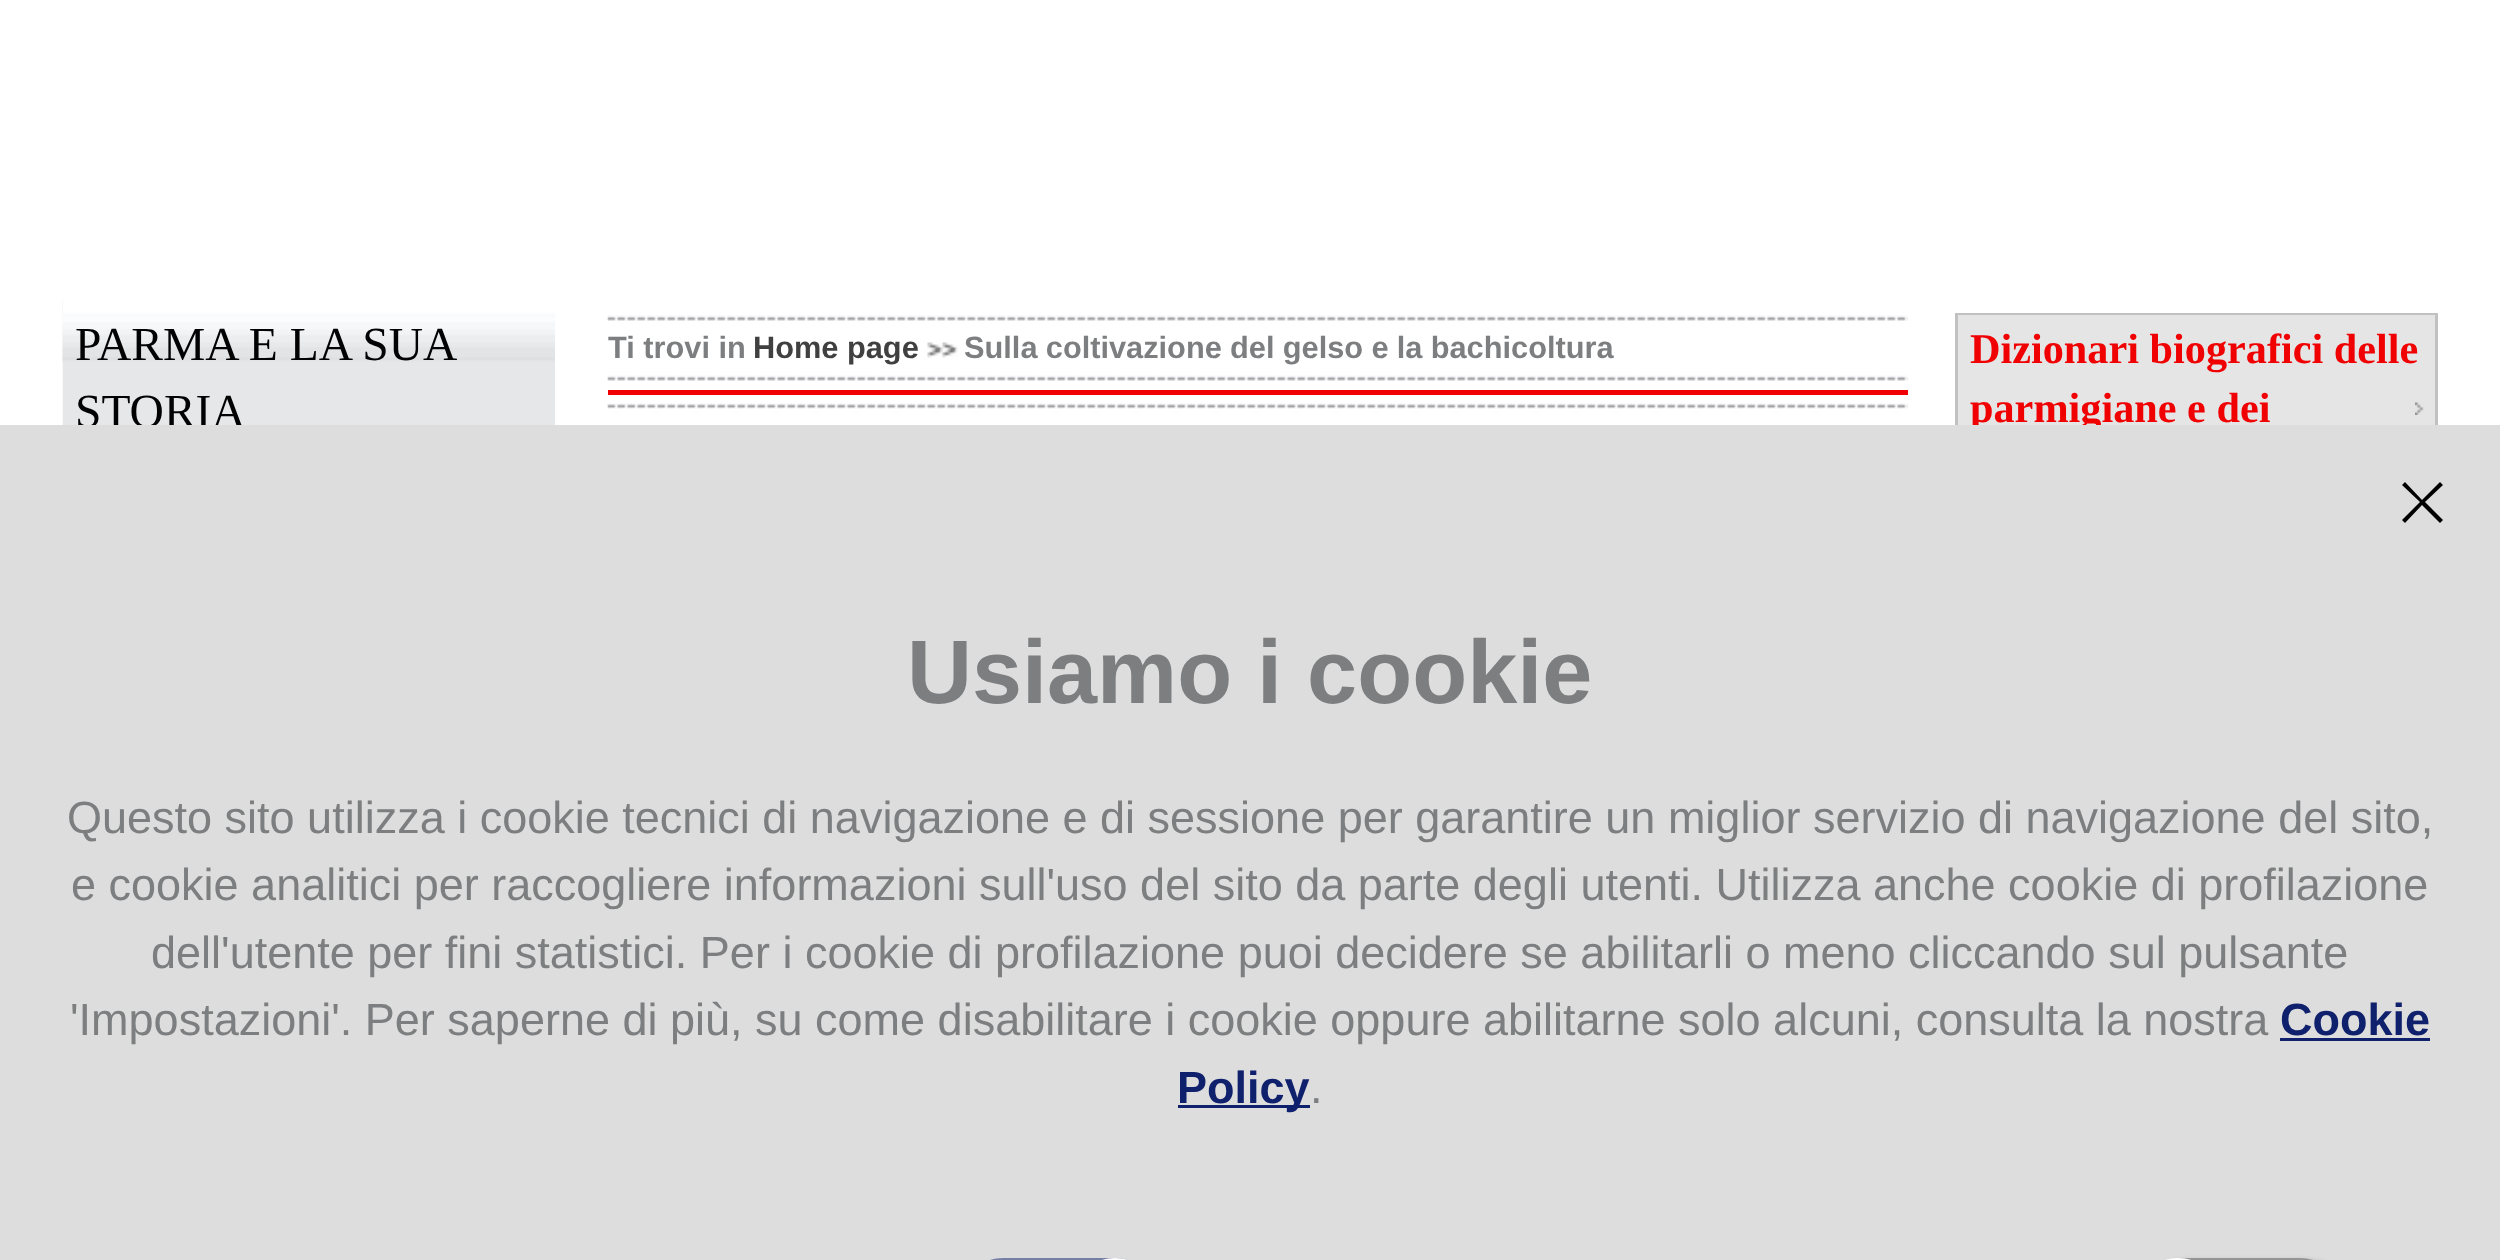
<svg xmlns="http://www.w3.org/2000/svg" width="2500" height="1260">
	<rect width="100%" height="100%" fill="#FFFFFF" />
	<image x="62" y="300" width="1" height="125" href="assets/img1.png" />
	<rect x="63" y="362" width="492" height="63" fill="#E6E7E8" />
	<image x="62" y="313" width="493" height="50" href="assets/img2.png" />
	<g font-family="Liberation Serif" font-size="47.5" fill="#020203">
		<text x="75" y="360">PARMA E LA SUA</text>
		<text x="75" y="427">STORIA</text>
	</g>
	<image x="607" y="315" width="1301" height="6" href="assets/img3.png" />
	<rect x="608" y="390" width="1300" height="5" fill="#F00000" />
	<image x="607" y="375" width="1301" height="6" href="assets/img4.png" />
	<text x="608" y="358" font-family="Liberation Sans" font-size="30.75" font-weight="700" fill="#7C7E7F">Ti trovi in</text>
	<text x="753" y="358" font-family="Liberation Sans" font-size="30.75" font-weight="700" fill="#404040">Home page</text>
	<image x="927" y="342" width="31" height="16" href="assets/img5.png" />
	<text x="964" y="358" word-spacing="-0.25" font-family="Liberation Sans" font-size="30.75" font-weight="700" fill="#7C7E7F">Sulla coltivazione del gelso e la bachicoltura</text>
	<image x="607" y="403" width="1301" height="6" href="assets/img6.png" />
	<rect x="1956.5" y="314.5" width="480" height="239" fill="none" stroke="#C1C1C1" stroke-width="3" />
	<rect x="1958" y="315" width="477" height="110" fill="#E5E5E5" />
	<image x="2415" y="402" width="9" height="13" href="assets/img7.png" />
	<g font-family="Liberation Serif" font-size="42.25" font-weight="700" fill="#F00000">
		<text x="1970" y="363">Dizionari biografici delle</text>
		<text x="1970" y="422">parmigiane e dei</text>
	</g>
	<rect x="0" y="425" width="2500" height="835" fill="#DDDDDD" />
	<path d="M2443 485L2440 482L2422 500L2405 482L2402 485L2420 502L2402 520L2405 523L2422 505L2440 523L2443 520L2425 502Z" fill="#000000" fill-rule="evenodd" />
	<text x="907" y="703" font-family="Liberation Sans" font-size="90" font-weight="700" fill="#7C7E7F">Usiamo i cookie</text>
	<g font-family="Liberation Sans" font-size="45" fill="#7C7E7F">
		<text x="67" y="833">Questo sito utilizza i cookie tecnici di navigazione e di sessione per garantire un miglior servizio di navigazione del sito,</text>
		<text x="71" y="900">e cookie analitici per raccogliere informazioni sull'uso del sito da parte degli utenti. Utilizza anche cookie di profilazione</text>
		<text x="151" y="968">dell'utente per fini statistici. Per i cookie di profilazione puoi decidere se abilitarli o meno cliccando sul pulsante</text>
		<text x="70" y="1035">'Impostazioni'. Per saperne di più, su come disabilitare i cookie oppure abilitarne solo alcuni, consulta la nostra</text>
	</g>
	<text x="2280" y="1035" font-family="Liberation Sans" font-size="45" font-weight="700" fill="#0F206C">Cookie</text>
	<rect x="2280" y="1038" width="150" height="3" fill="#0F206C" />
	<rect x="1178" y="1105" width="132" height="3" fill="#0F206C" />
	<text x="1177" y="1103" font-family="Liberation Sans" font-size="45" font-weight="700" fill="#0F206C">Policy</text>
	<text x="1310" y="1103" font-family="Liberation Sans" font-size="45" fill="#7C7E7F">.</text>
	<path d="M1003 1258H1115C1140 1258 1160 1278 1160 1303V1260H958V1303C958 1278 978 1258 1003 1258Z" fill="#767FA5" />
	<path d="M1115 1258C1140 1258 1160 1278 1160 1303V1260H1070V1303C1070 1278 1090 1258 1115 1258Z" fill="#FFFFFF" />
	<rect x="2145" y="1260" width="203" height="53" rx="45" fill="#000000" fill-opacity="0.2" filter="blur(2.5px)" />
	<path d="M2188 1258H2300C2325 1258 2345 1278 2345 1303V1260H2143V1303C2143 1278 2163 1258 2188 1258Z" fill="#959595" />
	<path d="M2178 1258C2203 1258 2223 1278 2223 1303V1260H2133V1303C2133 1278 2153 1258 2178 1258Z" fill="#FFFFFF" />
</svg>
